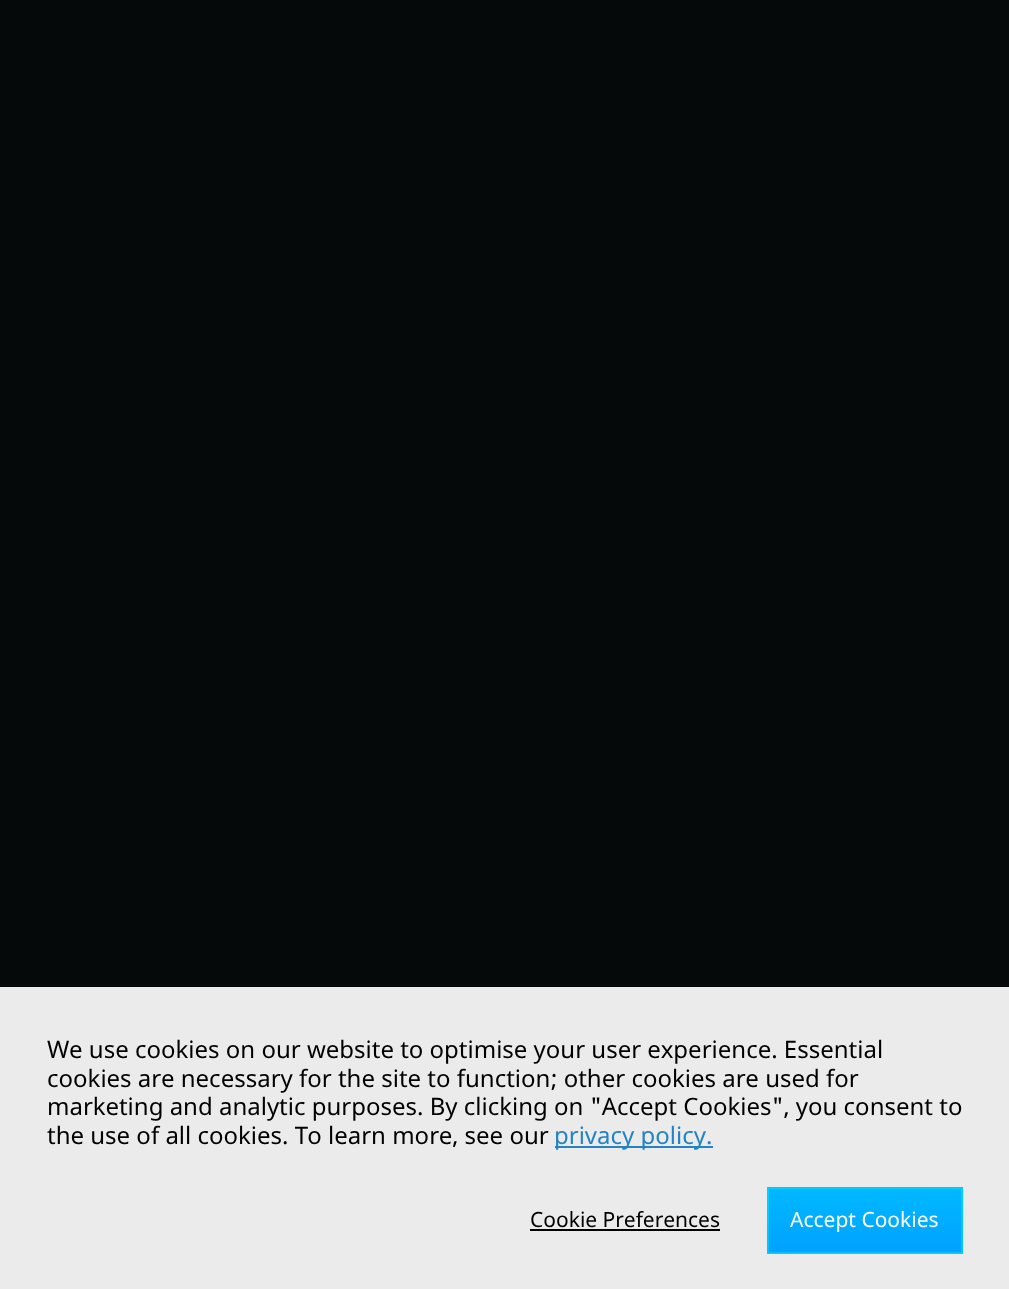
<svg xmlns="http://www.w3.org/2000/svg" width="1009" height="1289">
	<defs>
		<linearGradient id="g1" gradientUnits="userSpaceOnUse" x1="865" y1="1124" x2="865" y2="1188"><stop offset="0" stop-color="#00B8FF" /><stop offset="1" stop-color="#00A2FF" /></linearGradient>
		<linearGradient id="g2" gradientUnits="userSpaceOnUse" x1="865" y1="1188" x2="865" y2="1253"><stop offset="0" stop-color="#00B8FF" /><stop offset="1" stop-color="#00A2FF" /></linearGradient>
		<linearGradient id="g3" gradientUnits="userSpaceOnUse" x1="865" y1="1253" x2="865" y2="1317"><stop offset="0" stop-color="#00B8FF" /><stop offset="1" stop-color="#00A2FF" /></linearGradient>
	</defs>
	<rect width="100%" height="100%" fill="#05090A" />
	<rect x="0" y="987" width="1009" height="302" fill="#EBEBEB" />
	<g font-family="Noto Sans" font-size="24" fill="#000000">
		<text x="47" y="1058">We use cookies on our website to optimise your user experience. Essential</text>
		<text x="47" y="1087">cookies are necessary for the site to function; other cookies are used for</text>
		<text x="47" y="1115">marketing and analytic purposes. By clicking on "Accept Cookies", you consent to</text>
		<text x="47" y="1144">the use of all cookies. To learn more, see our</text>
	</g>
	<rect x="555" y="1146" width="158" height="2" fill="#2383C5" />
	<text x="554" y="1144" font-family="Noto Sans" font-size="24" fill="#2383C5">privacy policy.</text>
	<text x="530" y="1227" font-family="Noto Sans" font-size="21" fill="#000000">Cookie Preferences</text>
	<rect x="530" y="1229" width="190" height="2" fill="#000000" />
	<rect x="767" y="1187" width="196" height="1" fill="url(#g1)" />
	<rect x="767" y="1188" width="196" height="65" fill="url(#g2)" />
	<rect x="767" y="1253" width="196" height="1" fill="url(#g3)" />
	<rect x="768" y="1188" width="194" height="65" fill="none" stroke="#00F8FF" stroke-opacity="0.4" stroke-width="2" />
	<text x="790" y="1227" font-family="Noto Sans" font-size="21" fill="#FFFFFF">Accept Cookies</text>
</svg>
